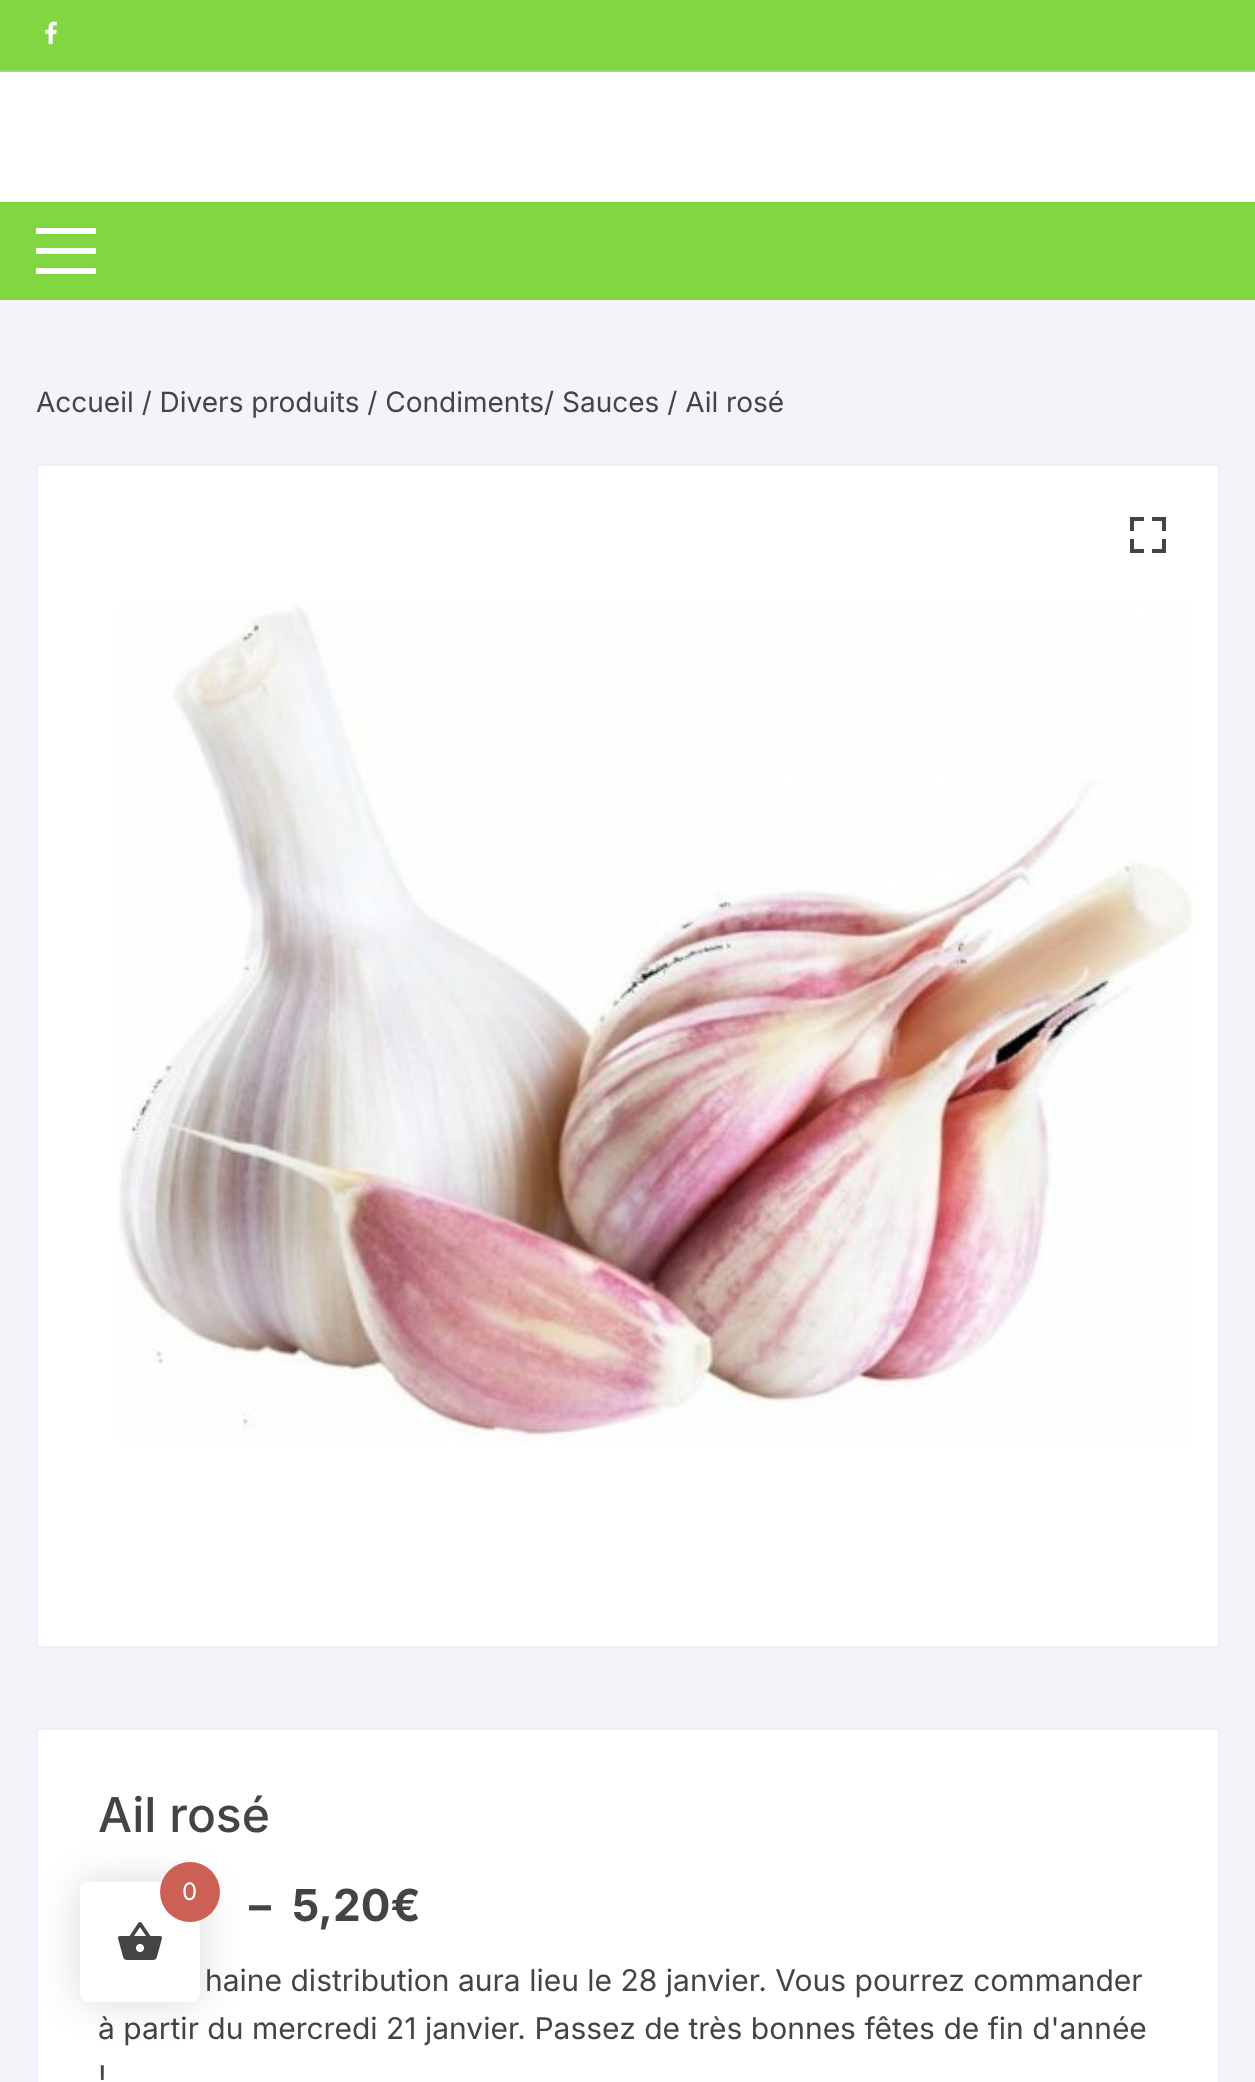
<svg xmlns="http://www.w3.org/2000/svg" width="1255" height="2082">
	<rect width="100%" height="100%" fill="#F3F4F8" />
	<rect x="0" y="72" width="1255" height="130" fill="#FFFFFF" />
	<rect x="0" y="0" width="1255" height="70" fill="#81D742" />
	<rect x="0" y="70" width="1255" height="2" fill="#9ADF68" />
	<image x="45" y="21" width="12" height="24" href="assets/img1.png" />
	<rect x="0" y="202" width="1255" height="98" fill="#81D742" />
	<rect x="36" y="228" width="60" height="6" fill="#FFFFFF" />
	<rect x="36" y="248" width="60" height="6" fill="#FFFFFF" />
	<rect x="36" y="268" width="60" height="6" fill="#FFFFFF" />
	<text x="36" y="412" font-family="Inter" font-size="28" fill="#444444">Accueil / Divers produits / Condiments/ Sauces / Ail rosé</text>
	<rect x="37" y="465" width="1182" height="1182" fill="#FFFFFF" stroke="#EEF1FD" stroke-width="2" />
	<image x="1130" y="517" width="36" height="36" href="assets/img2.png" />
	<image x="118" y="604" width="1075" height="838" href="assets/img3.png" />
	<rect x="37" y="1729" width="1182" height="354" fill="#FFFFFF" stroke="#EEF1FD" stroke-width="2" />
	<text x="98" y="1832" font-family="Inter" font-size="48" font-weight="500" fill="#444444">Ail rosé</text>
	<g font-family="Inter" font-size="44" font-weight="700" fill="#444444">
		<text x="249" y="1921">–</text>
		<text x="292" y="1921">5,20€</text>
	</g>
	<g font-family="Inter" font-size="30" fill="#444444">
		<text x="205" y="1991">haine distribution aura lieu le 28 janvier. Vous pourrez commander</text>
		<text x="98" y="2039">à partir du mercredi 21 janvier. Passez de très bonnes fêtes de fin d'année</text>
		<text x="98" y="2087">!</text>
	</g>
	<rect x="80" y="1882" width="120" height="120" rx="8" fill="#000000" fill-opacity="0.15" filter="blur(20px)" />
	<rect x="80" y="1882" width="120" height="120" rx="8" fill="#FFFFFF" />
	<circle cx="190" cy="1892" r="30" fill="#CC6055" />
	<text x="182" y="1900" font-family="Inter" font-size="24" fill="#FFFFFF">0</text>
	<image x="118" y="1922" width="44" height="38" href="assets/img4.png" />
</svg>
